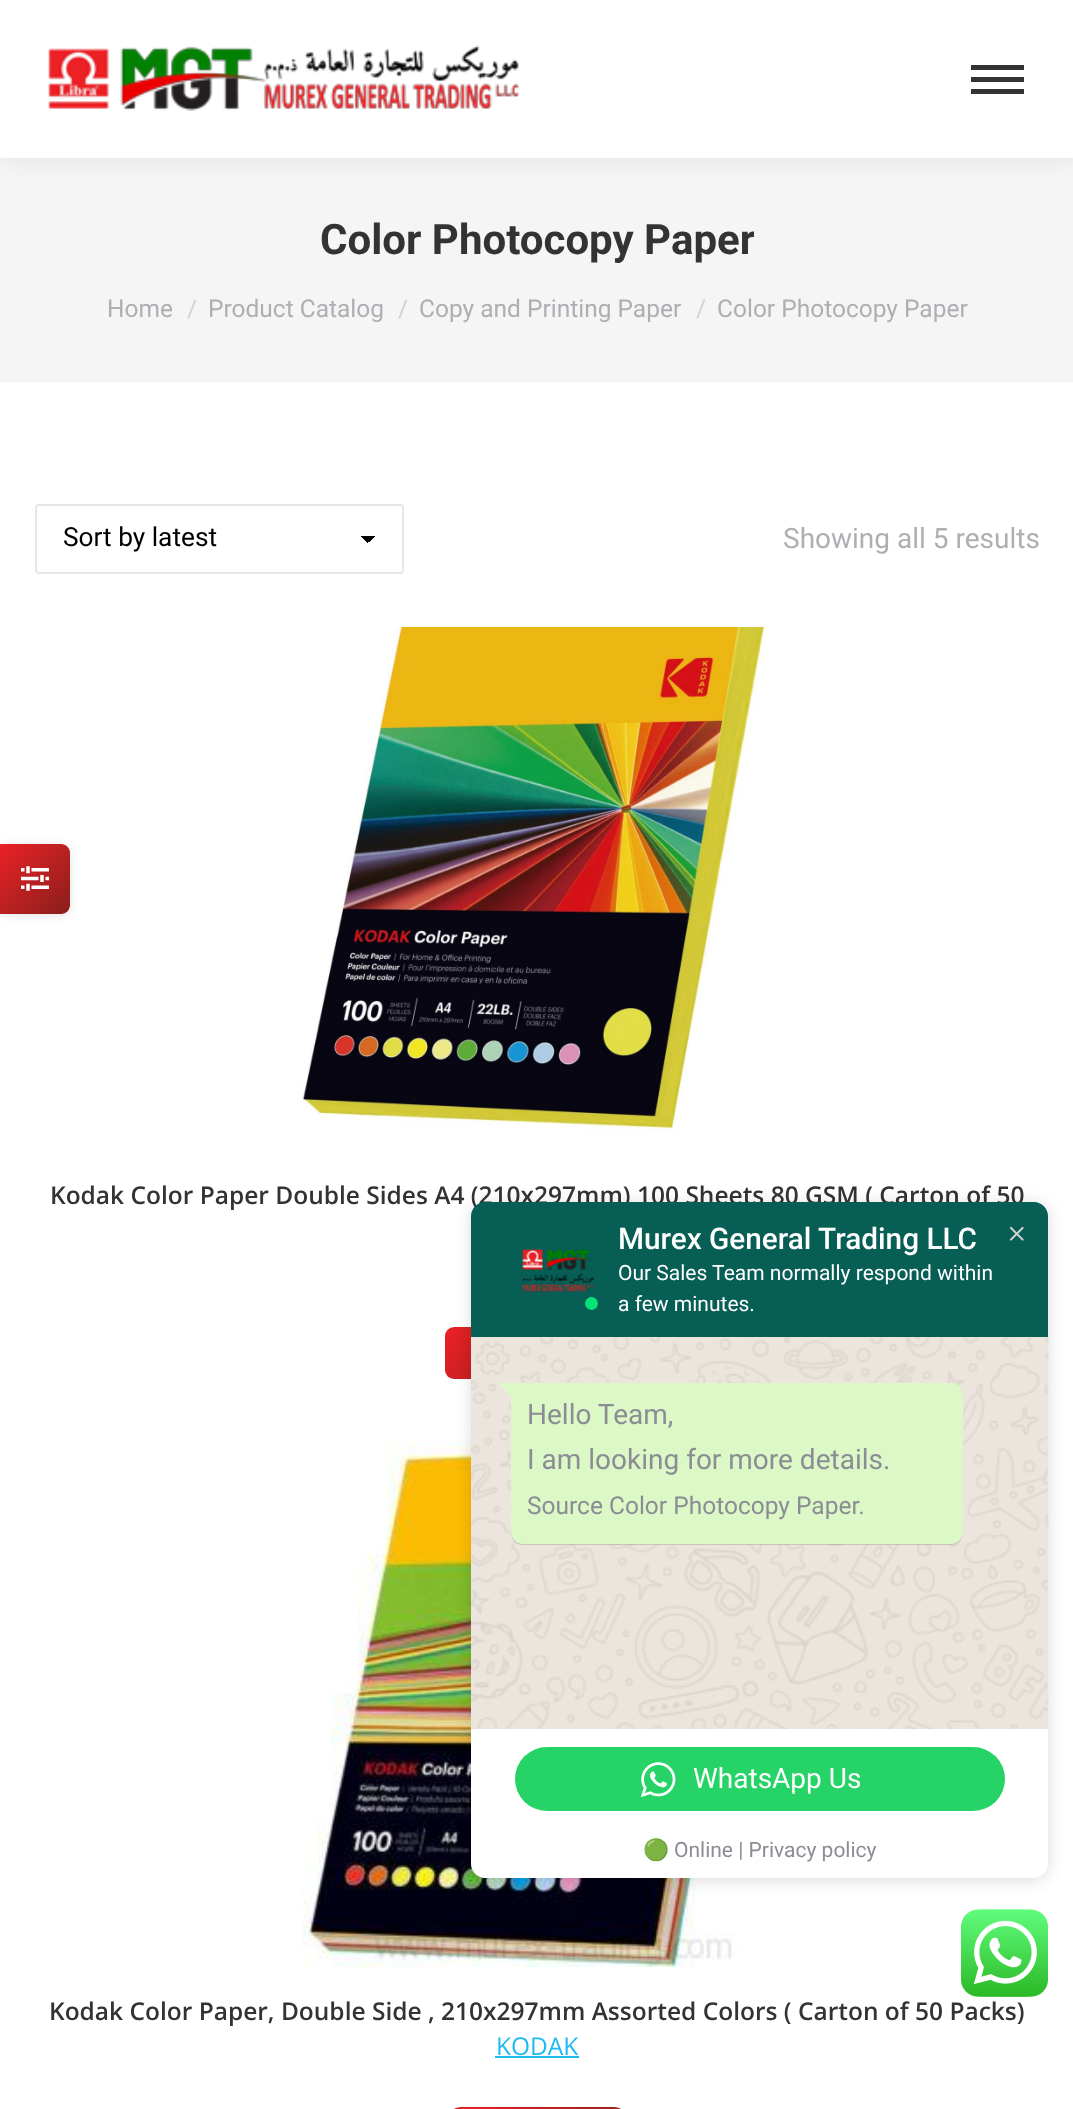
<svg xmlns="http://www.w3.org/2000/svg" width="1073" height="2109">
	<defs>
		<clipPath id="clip1"><rect x="320" y="210" width="434" height="60" /></clipPath>
		<linearGradient id="g1" gradientUnits="userSpaceOnUse" x1="0" y1="844" x2="70" y2="914"><stop offset="0" stop-color="#EA2126" /><stop offset="1" stop-color="#891F1B" /></linearGradient>
		<linearGradient id="g2" gradientUnits="userSpaceOnUse" x1="368" y1="535" x2="376" y2="543"><stop offset="0.5" stop-color="#000000" /><stop offset="0.5" stop-color="#FDFDFD" /></linearGradient>
		<linearGradient id="g3" gradientUnits="userSpaceOnUse" x1="359" y1="543" x2="368" y2="535"><stop offset="0.5" stop-color="#FDFDFD" /><stop offset="0.5" stop-color="#000000" /></linearGradient>
		<linearGradient id="g4" gradientUnits="userSpaceOnUse" x1="478" y1="1293" x2="597" y2="1412"><stop offset="0" stop-color="#EA2126" /><stop offset="1" stop-color="#891F1B" /></linearGradient>
		<linearGradient id="g5" gradientUnits="userSpaceOnUse" x1="481" y1="2077" x2="593" y2="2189"><stop offset="0" stop-color="#EA2126" /><stop offset="1" stop-color="#891F1B" /></linearGradient>
	</defs>
	<rect width="100%" height="100%" fill="#FFFFFF" />
	<rect x="0" y="158" width="1073" height="224" fill="#F5F5F5" />
	<rect x="-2" y="-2" width="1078" height="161" fill="#000000" fill-opacity="0.07" filter="blur(13px)" />
	<rect x="0" y="0" width="1073" height="158" fill="#FFFFFF" />
	<image x="48" y="45" width="472" height="66" href="assets/img1.png" />
	<rect x="971" y="65" width="53" height="5" fill="#333333" />
	<rect x="971" y="77" width="53" height="5" fill="#333333" />
	<rect x="971" y="89" width="53" height="5" fill="#333333" />
	<g clip-path="url(#clip1)">
		<text x="320" y="254" font-family="Roboto" font-size="42" font-weight="700" fill="#333333">Color Photocopy Paper</text>
	</g>
	<text x="107" y="317" font-family="Roboto" font-size="24.5" fill="#ADAFB3">Home</text>
	<text x="187" y="317" font-family="Roboto" font-size="24.5" fill="#D1D2D4">/</text>
	<text x="208" y="317" font-family="Roboto" font-size="24.5" fill="#ADAFB3">Product Catalog</text>
	<text x="398" y="317" font-family="Roboto" font-size="24.5" fill="#D1D2D4">/</text>
	<text x="419" y="317" font-family="Roboto" font-size="24.5" fill="#ADAFB3">Copy and Printing Paper</text>
	<text x="696" y="317" font-family="Roboto" font-size="24.5" fill="#D1D2D4">/</text>
	<text x="717" y="317" font-family="Roboto" font-size="24.5" fill="#ADAFB3">Color Photocopy Paper</text>
	<rect x="0" y="845" width="70" height="70" rx="9" fill="#000000" fill-opacity="0.12" filter="blur(5px)" />
	<path d="M0 844H61C66 844 70 848 70 853V905C70 910 66 914 61 914H0Z" fill="url(#g1)" />
	<image x="21" y="866" width="28" height="25" href="assets/img2.png" />
	<rect x="368" y="536" width="8" height="6" fill="url(#g2)" />
	<rect x="359" y="536" width="9" height="7" fill="url(#g3)" />
	<rect x="36" y="505" width="367" height="68" rx="3" fill="none" stroke="#E7E7E7" stroke-width="2" />
	<text x="63" y="546" font-family="Roboto" font-size="26.25" fill="#000000">Sort by latest</text>
	<text x="783" y="548" font-family="Roboto" font-size="28" fill="#ADAFB3">Showing all 5 results</text>
	<image x="302" y="627" width="463" height="504" href="assets/img3.png" />
	<text x="50" y="1204" font-family="Open Sans" font-size="24.5" font-weight="600" fill="#333333">Kodak Color Paper Double Sides A4 (210x297mm) 100 Sheets 80 GSM ( Carton of 50</text>
	<rect x="445" y="1327" width="185" height="52" rx="9" fill="url(#g4)" />
	<image x="302" y="1442" width="477" height="525" href="assets/img4.png" />
	<text x="49" y="2020" font-family="Open Sans" font-size="24.5" font-weight="600" fill="#333333">Kodak Color Paper, Double Side , 210x297mm Assorted Colors ( Carton of 50 Packs)</text>
	<text x="496" y="2055" font-family="Open Sans" font-size="24.5" fill="#1EBBF0">KODAK</text>
	<rect x="495" y="2056" width="84" height="2" fill="#1EBBF0" />
	<rect x="452" y="2107" width="171" height="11" rx="9" fill="url(#g5)" />
	<rect x="471" y="1204" width="577" height="676" rx="14" fill="#000000" fill-opacity="0.14" filter="blur(8px)" />
	<path d="M485 1202H1034C1041.5 1202 1048 1208.5 1048 1216V1339H471V1216C471 1208.5 477.5 1202 485 1202Z" fill="#075E54" />
	<image x="522" y="1249" width="73" height="43" href="assets/img5.png" />
	<circle cx="591.5" cy="1303.5" r="8.5" fill="#06E376" stroke="#075E54" stroke-width="4" />
	<text x="618" y="1249" font-family="Roboto" font-size="29.75" font-weight="500" fill="#FFFFFF">Murex General Trading LLC</text>
	<g font-family="Roboto" font-size="21" fill="#FFFFFF">
		<text x="618" y="1280">Our Sales Team normally respond within</text>
		<text x="618" y="1311">a few minutes.</text>
	</g>
	<rect x="471" y="1337" width="577" height="392" fill="#ECE5DD" />
	<image x="471" y="1337" width="578" height="392" href="assets/img6.png" />
	<rect x="511" y="1384" width="452" height="161" rx="12" fill="#000000" fill-opacity="0.14" filter="blur(0.5px)" />
	<path d="M511 1383H951C957.5 1383 963 1388.5 963 1395V1532C963 1538.5 957.5 1544 951 1544H523C516.5 1544 511 1538.5 511 1532Z" fill="#DCF8C6" />
	<path d="M512.5 1383V1398L497.5 1383Z" fill="#DCF8C6" />
	<g font-family="Roboto" font-size="28" fill="#8B8D94">
		<text x="527" y="1424">Hello Team,</text>
		<text x="527" y="1469">I am looking for more details.</text>
	</g>
	<text x="527" y="1514" font-family="Roboto" font-size="24.5" fill="#8B8D94">Source Color Photocopy Paper.</text>
	<rect x="471" y="1729" width="577" height="96" fill="#FFFFFF" />
	<rect x="515" y="1747" width="490" height="64" rx="32" fill="#25D366" />
	<image x="641" y="1762" width="35" height="35" href="assets/img7.png" />
	<text x="693" y="1788" font-family="Roboto" font-size="28" fill="#FFFFFF">WhatsApp Us</text>
	<path d="M471 1825H1048V1864C1048 1871.5 1041.5 1878 1034 1878H485C477.5 1878 471 1871.5 471 1864Z" fill="#FFFFFF" />
	<text x="643" y="1857" font-family="Noto Color Emoji" font-size="21" fill="#8B8D94">🟢</text>
	<text x="674" y="1857" font-family="Roboto" font-size="21" fill="#8B8D94">Online | Privacy policy</text>
	<image x="1009" y="1226" width="15" height="15" href="assets/img8.png" />
	<image x="961" y="1909" width="87" height="88" href="assets/img9.png" />
</svg>
